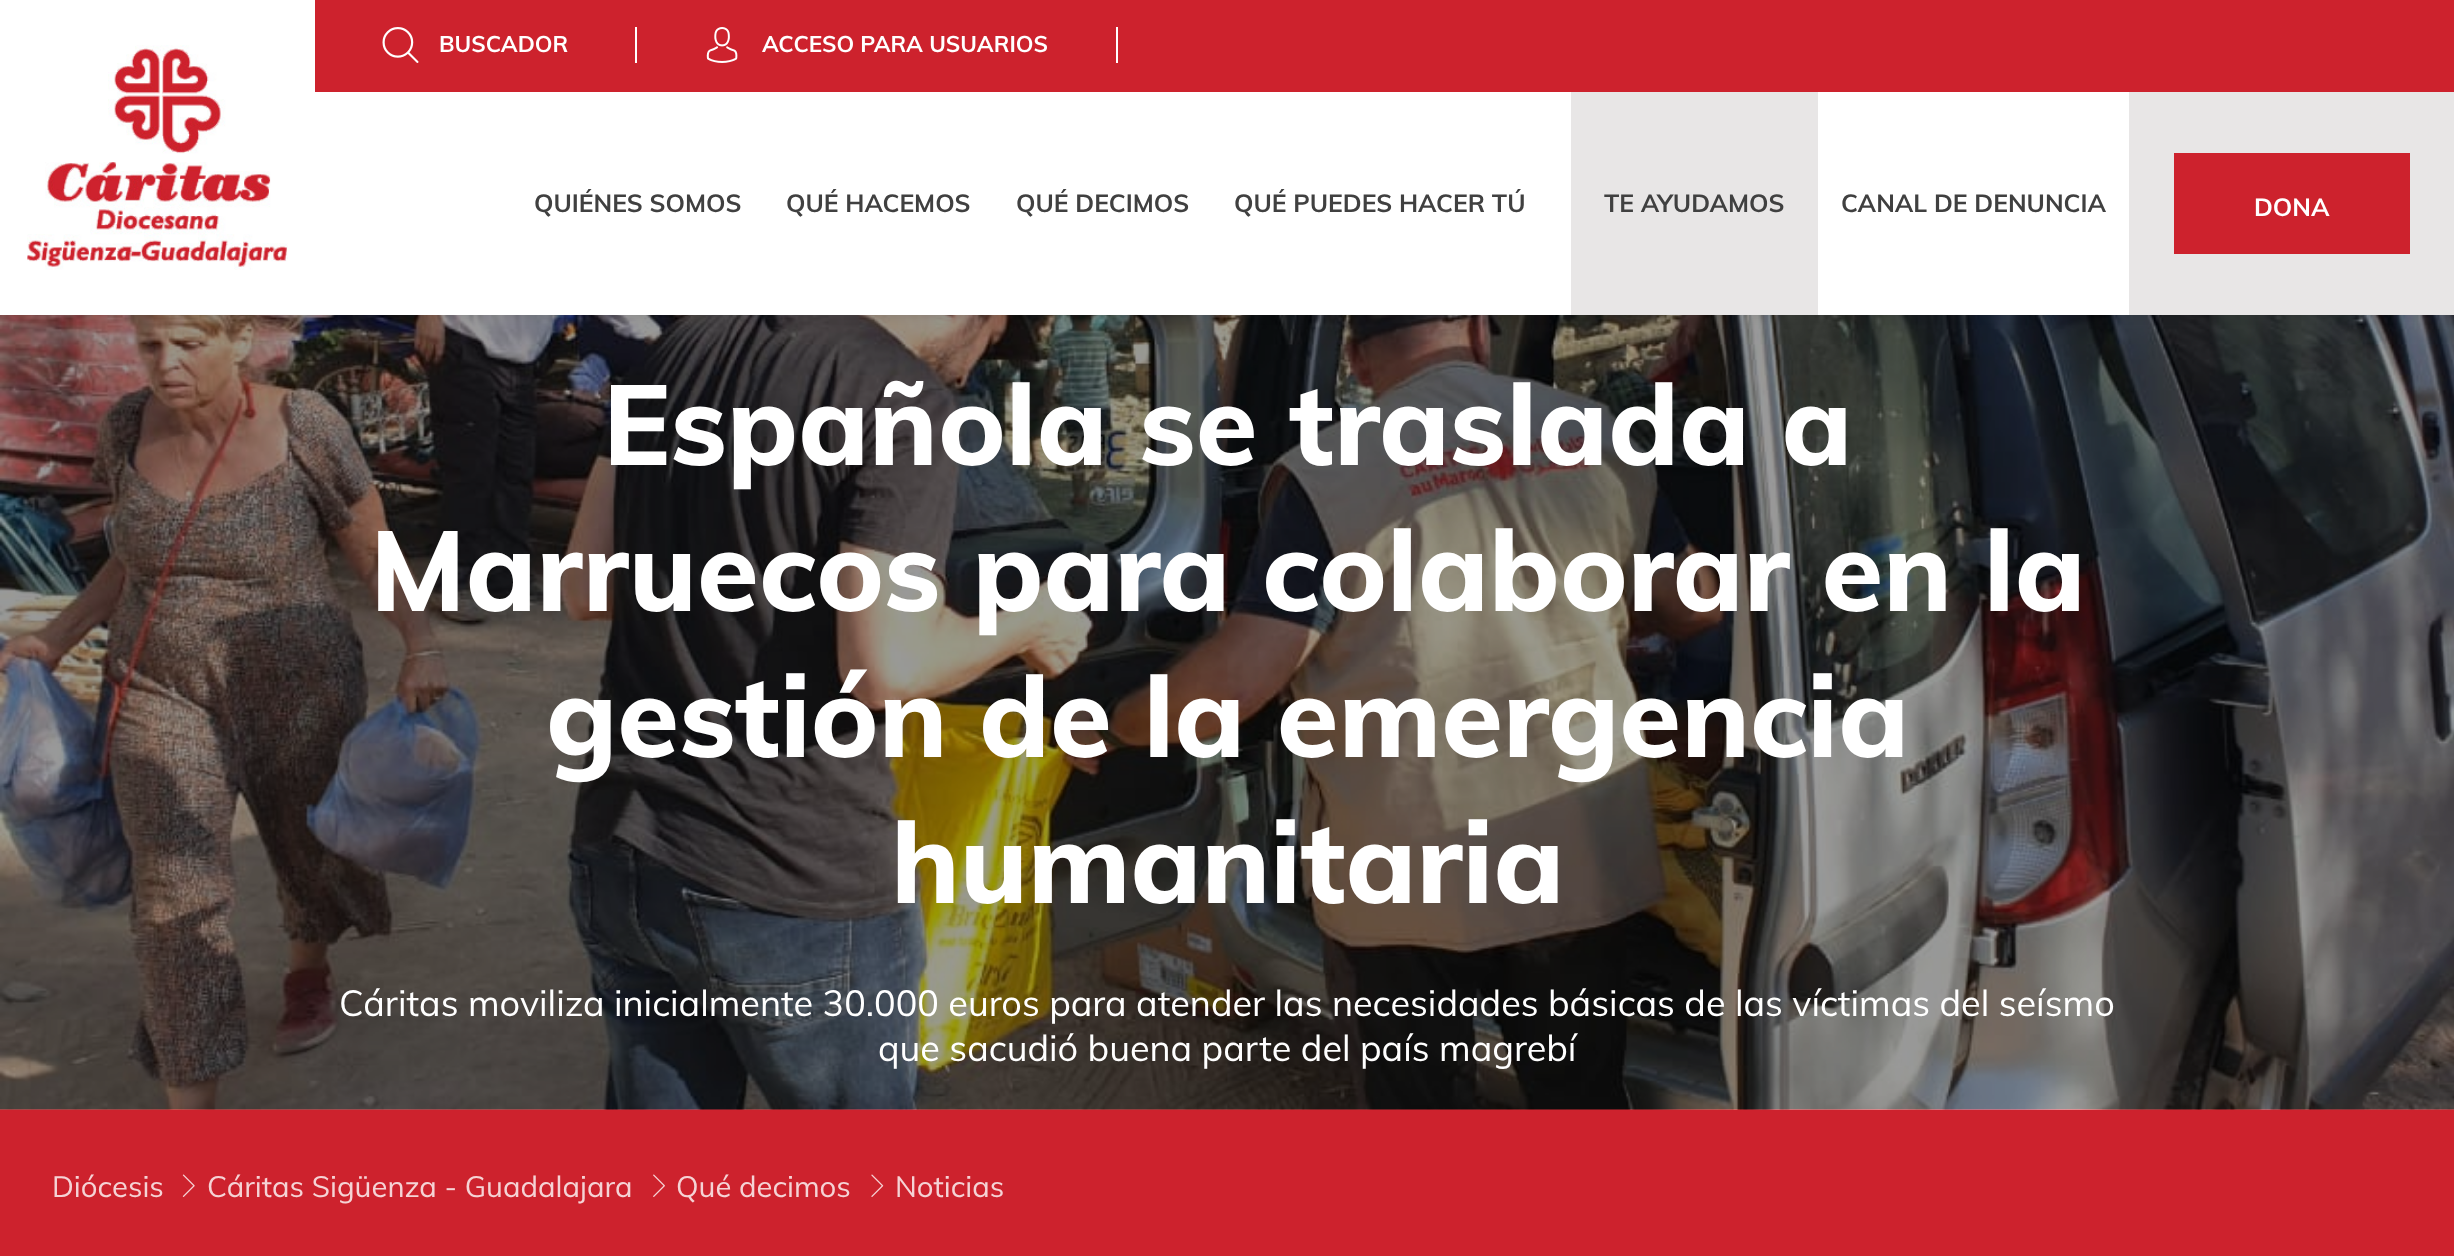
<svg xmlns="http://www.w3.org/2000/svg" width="2454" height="1256">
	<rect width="100%" height="100%" fill="#CD222D" />
	<image x="0" y="315" width="2454" height="795" href="assets/img4.png" />
	<rect x="2" y="0" width="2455" height="315" fill="#000000" fill-opacity="0.1" filter="blur(5.5px)" />
	<rect x="0" y="0" width="2129" height="315" fill="#FFFFFF" />
	<image x="27" y="45" width="261" height="225" href="assets/img1.png" />
	<rect x="315" y="0" width="2139" height="92" fill="#CD222D" />
	<rect x="635" y="27" width="2" height="36" fill="#FFFFFF" />
	<image x="382" y="27" width="37" height="36" href="assets/img2.png" />
	<text x="439" y="52" font-family="Muli" font-size="22.5" font-weight="700" fill="#FFFFFF">BUSCADOR</text>
	<rect x="1116" y="27" width="2" height="36" fill="#FFFFFF" />
	<image x="706" y="27" width="32" height="36" href="assets/img3.png" />
	<text x="762" y="52" font-family="Muli" font-size="22.5" font-weight="700" fill="#FFFFFF">ACCESO PARA USUARIOS</text>
	<g font-family="Muli" font-size="24.75" font-weight="700" fill="#404040">
		<text x="534" y="212">QUIÉNES SOMOS</text>
		<text x="786" y="212">QUÉ HACEMOS</text>
		<text x="1016" y="212">QUÉ DECIMOS</text>
		<text x="1234" y="212">QUÉ PUEDES HACER TÚ</text>
	</g>
	<rect x="1571" y="92" width="247" height="223" fill="#E8E6E6" />
	<g font-family="Muli" font-size="24.75" font-weight="700" fill="#404040">
		<text x="1604" y="212">TE AYUDAMOS</text>
		<text x="1841" y="212">CANAL DE DENUNCIA</text>
	</g>
	<rect x="2129" y="92" width="325" height="223" fill="#E8E6E6" />
	<rect x="2174" y="153" width="236" height="101" fill="#CD222D" />
	<text x="2254" y="216" font-family="Muli" font-size="24.75" font-weight="700" fill="#FFFFFF">DONA</text>
	<g font-family="Muli" font-size="112.5" font-weight="800" fill="#FFFFFF">
		<text x="603" y="465">Española se traslada a</text>
		<text x="370" y="611">Marruecos para colaborar en la</text>
		<text x="546" y="757">gestión de la emergencia</text>
		<text x="891" y="903">humanitaria</text>
	</g>
	<g font-family="Muli" font-size="36" fill="#FFFFFF">
		<text x="339" y="1016">Cáritas moviliza inicialmente 30.000 euros para atender las necesidades básicas de las víctimas del seísmo</text>
		<text x="878" y="1061">que sacudió buena parte del país magrebí</text>
	</g>
	<text x="52" y="1197" font-family="Muli" font-size="29.25" fill="#F5D3D5">Diócesis</text>
	<image x="182" y="1174" width="13" height="23" href="assets/img5.png" />
	<text x="207" y="1197" font-family="Muli" font-size="29.25" fill="#F5D3D5">Cáritas Sigüenza - Guadalajara</text>
	<image x="653" y="1174" width="12" height="23" href="assets/img6.png" />
	<text x="676" y="1197" font-family="Muli" font-size="29.25" fill="#F5D3D5">Qué decimos</text>
	<image x="871" y="1174" width="13" height="23" href="assets/img7.png" />
	<text x="895" y="1197" font-family="Muli" font-size="29.25" fill="#F5D3D5">Noticias</text>
</svg>
